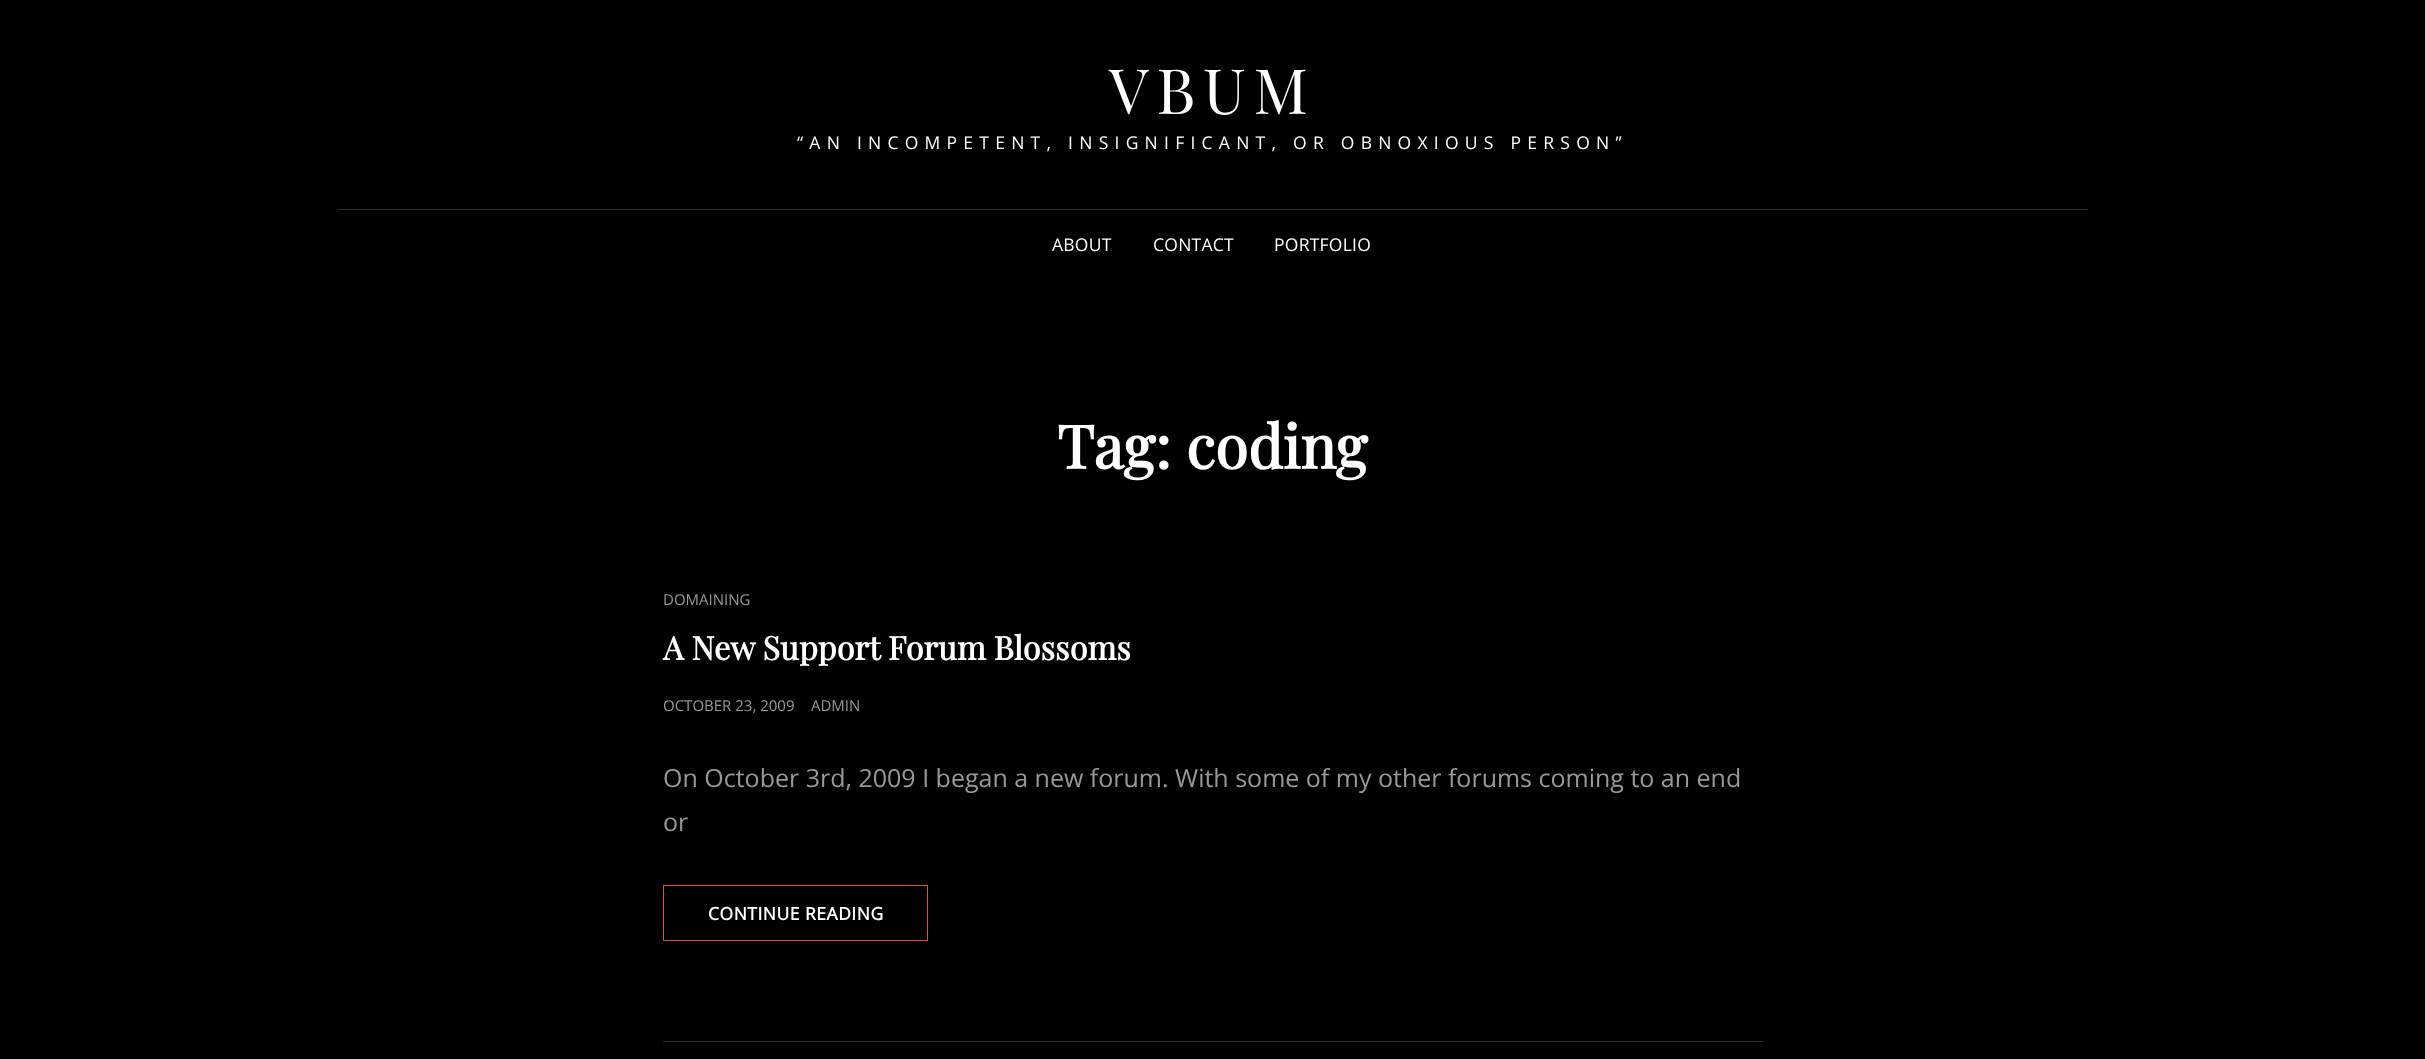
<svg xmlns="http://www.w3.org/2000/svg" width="2425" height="1059">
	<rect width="100%" height="100%" fill="#000000" />
	<text x="1109" y="114" font-family="Playfair Display" font-size="62.5" letter-spacing="8" fill="#FFFFFF">VBUM</text>
	<text x="797" y="149" font-family="Open Sans" font-size="17.5" letter-spacing="6.25" fill="#FFFFFF">“AN INCOMPETENT, INSIGNIFICANT, OR OBNOXIOUS PERSON”</text>
	<rect x="338" y="209" width="1750" height="1" fill="#2F2F2F" />
	<g font-family="Open Sans" font-size="17.5" letter-spacing="0.25" fill="#FFFFFF">
		<text x="1052" y="251">ABOUT</text>
		<text x="1153" y="251">CONTACT</text>
		<text x="1274" y="251">PORTFOLIO</text>
	</g>
	<text x="1057" y="469" font-family="Playfair Display" font-size="60" font-weight="700" fill="#FFFFFF">Tag: coding</text>
	<rect x="663" y="1041" width="1100" height="1" fill="#2F2F2F" />
	<text x="663" y="605" font-family="Open Sans" font-size="15" fill="#999999">DOMAINING</text>
	<text x="663" y="660" font-family="Playfair Display" font-size="32.5" font-weight="700" fill="#FFFFFF">A New Support Forum Blossoms</text>
	<g font-family="Open Sans" font-size="15" fill="#999999">
		<text x="663" y="711">OCTOBER 23, 2009</text>
		<text x="811" y="711">ADMIN</text>
	</g>
	<g font-family="Open Sans" font-size="25" fill="#999999">
		<text x="663" y="787">On October 3rd, 2009 I began a new forum. With some of my other forums coming to an end</text>
		<text x="663" y="831">or</text>
	</g>
	<rect x="663.5" y="885.5" width="264" height="55" fill="none" stroke="#DB4F3D" />
	<text x="708" y="920" font-family="Open Sans" font-size="17.5" font-weight="700" letter-spacing="0.5" fill="#FFFFFF">CONTINUE READING</text>
</svg>
